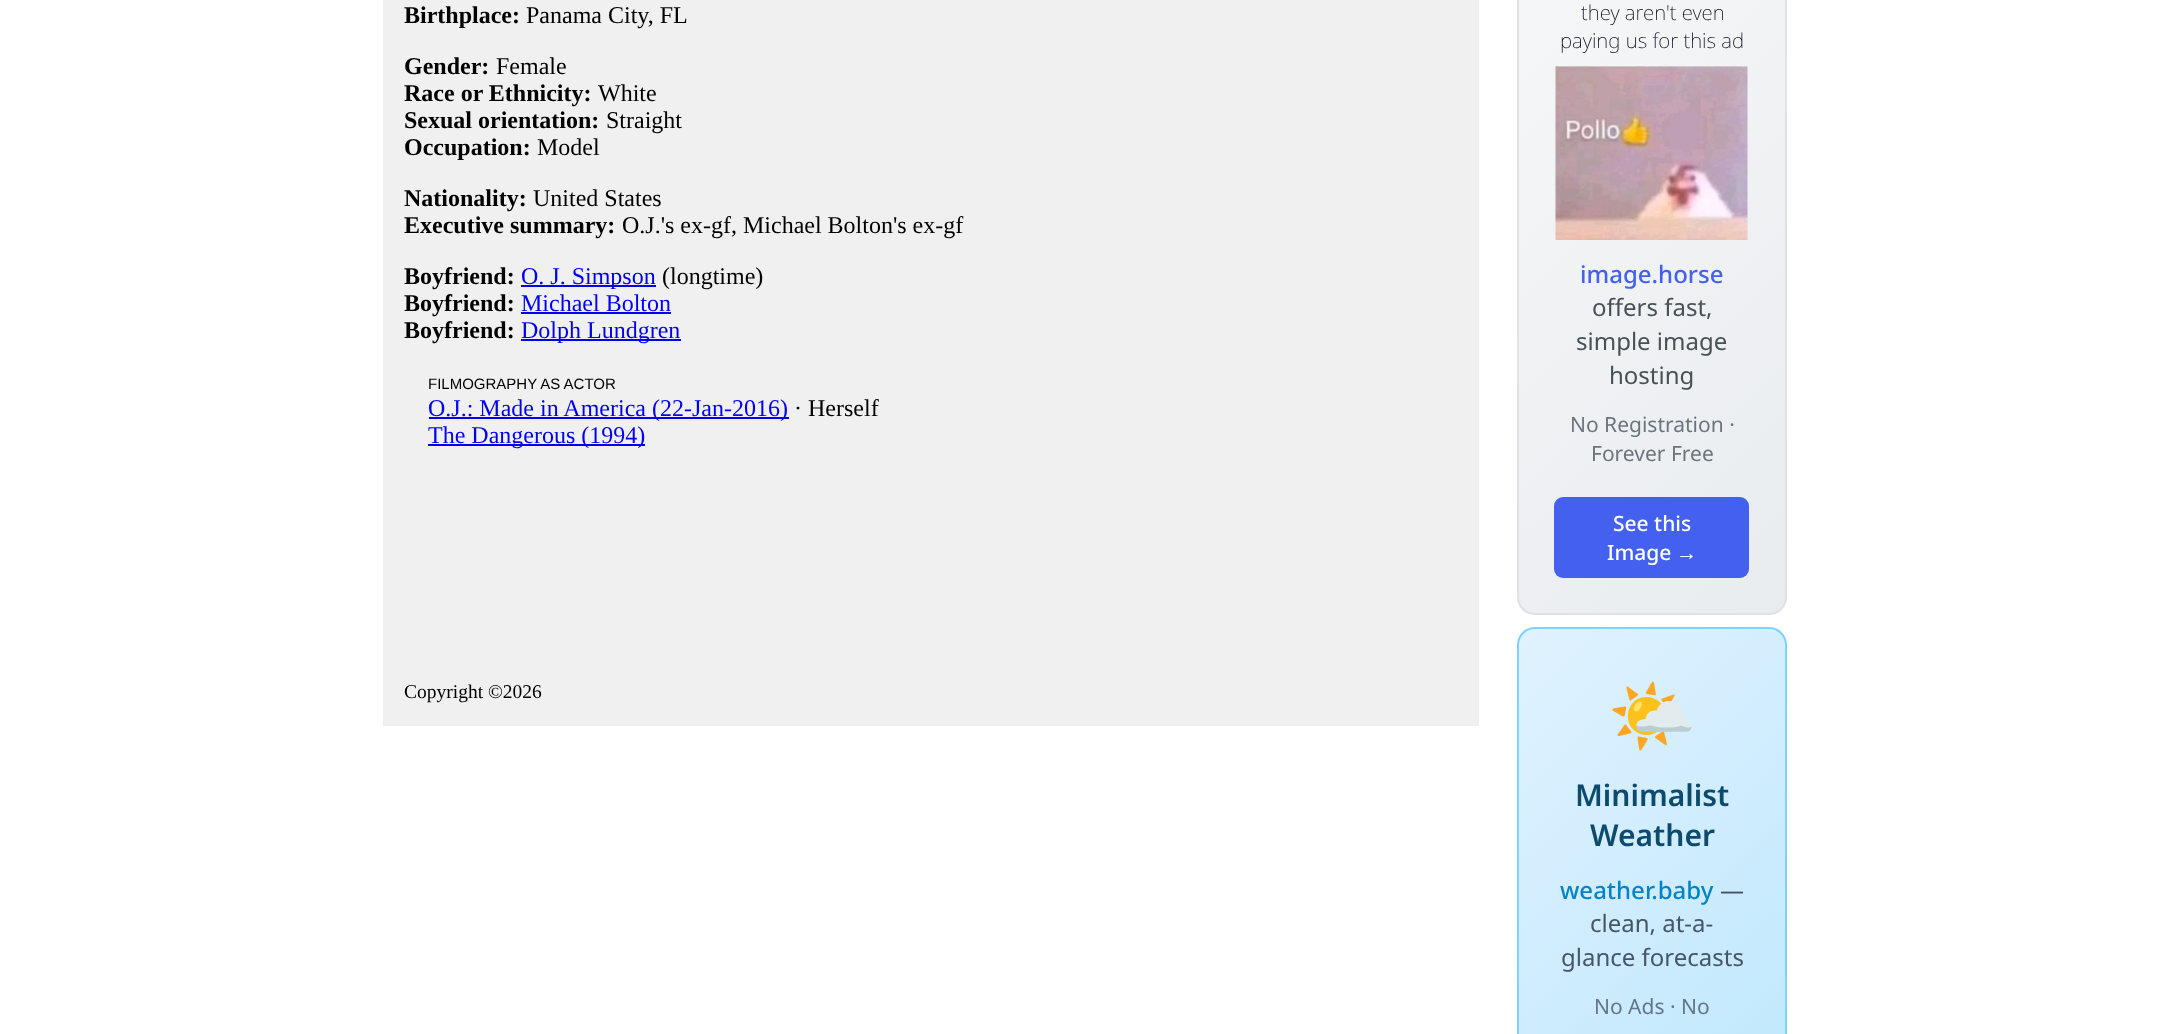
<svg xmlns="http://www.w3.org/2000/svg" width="2169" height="1034">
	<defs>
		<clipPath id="clip1"><rect x="1517" y="-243" width="270" height="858" rx="18" /></clipPath>
		<linearGradient id="g1" gradientUnits="userSpaceOnUse" x1="1371" y1="-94" x2="1932" y2="467"><stop offset="0" stop-color="#F8F9FA" /><stop offset="1" stop-color="#E9ECEF" /></linearGradient>
		<clipPath id="clip2"><rect x="1517" y="627" width="270" height="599" rx="18" /></clipPath>
		<linearGradient id="g2" gradientUnits="userSpaceOnUse" x1="1436" y1="711" x2="1867" y2="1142"><stop offset="0" stop-color="#E0F2FE" /><stop offset="1" stop-color="#BAE6FD" /></linearGradient>
	</defs>
	<rect width="100%" height="100%" fill="#FFFFFF" />
	<rect x="383" y="0" width="1096" height="726" fill="#F0F0F0" />
	<text x="404" y="23" font-family="Liberation Serif" font-size="24" font-weight="700" fill="#000000">Birthplace:</text>
	<text x="526" y="23" font-family="Liberation Serif" font-size="24" fill="#000000">Panama City, FL</text>
	<text x="404" y="74" font-family="Liberation Serif" font-size="24" font-weight="700" fill="#000000">Gender:</text>
	<text x="496" y="74" font-family="Liberation Serif" font-size="24" fill="#000000">Female</text>
	<text x="404" y="101" font-family="Liberation Serif" font-size="24" font-weight="700" fill="#000000">Race or Ethnicity:</text>
	<text x="598" y="101" font-family="Liberation Serif" font-size="24" fill="#000000">White</text>
	<text x="404" y="128" font-family="Liberation Serif" font-size="24" font-weight="700" fill="#000000">Sexual orientation:</text>
	<text x="606" y="128" font-family="Liberation Serif" font-size="24" fill="#000000">Straight</text>
	<text x="404" y="155" font-family="Liberation Serif" font-size="24" font-weight="700" fill="#000000">Occupation:</text>
	<text x="537" y="155" font-family="Liberation Serif" font-size="24" fill="#000000">Model</text>
	<text x="404" y="206" font-family="Liberation Serif" font-size="24" font-weight="700" fill="#000000">Nationality:</text>
	<text x="533" y="206" font-family="Liberation Serif" font-size="24" fill="#000000">United States</text>
	<text x="404" y="233" font-family="Liberation Serif" font-size="24" font-weight="700" fill="#000000">Executive summary:</text>
	<text x="622" y="233" font-family="Liberation Serif" font-size="24" fill="#000000">O.J.'s ex-gf, Michael Bolton's ex-gf</text>
	<text x="404" y="284" font-family="Liberation Serif" font-size="24" font-weight="700" fill="#000000">Boyfriend:</text>
	<rect x="521" y="285" width="135" height="2" fill="#0000EE" />
	<text x="521" y="284" font-family="Liberation Serif" font-size="24" fill="#0000EE">O. J. Simpson</text>
	<text x="662" y="284" font-family="Liberation Serif" font-size="24" fill="#000000">(longtime)</text>
	<text x="404" y="311" font-family="Liberation Serif" font-size="24" font-weight="700" fill="#000000">Boyfriend:</text>
	<text x="521" y="311" font-family="Liberation Serif" font-size="24" fill="#0000EE">Michael Bolton</text>
	<rect x="521" y="312" width="150" height="2" fill="#0000EE" />
	<text x="404" y="338" font-family="Liberation Serif" font-size="24" font-weight="700" fill="#000000">Boyfriend:</text>
	<rect x="521" y="339" width="160" height="2" fill="#0000EE" />
	<text x="521" y="338" font-family="Liberation Serif" font-size="24" fill="#0000EE">Dolph Lundgren</text>
	<text x="428" y="389" font-family="Liberation Sans" font-size="15" fill="#000000">FILMOGRAPHY AS ACTOR</text>
	<rect x="429" y="417" width="360" height="2" fill="#0000EE" />
	<text x="428" y="416" font-family="Liberation Serif" font-size="24" fill="#0000EE">O.J.: Made in America (22-Jan-2016)</text>
	<text x="794" y="416" font-family="Liberation Serif" font-size="24" fill="#000000">· Herself</text>
	<rect x="428" y="444" width="217" height="2" fill="#0000EE" />
	<text x="428" y="443" font-family="Liberation Serif" font-size="24" fill="#0000EE">The Dangerous (1994)</text>
	<text x="404" y="698" font-family="Liberation Serif" font-size="19.5" fill="#000000">Copyright ©2026</text>
	<g clip-path="url(#clip1)">
		<rect x="1518" y="0" width="267" height="614" fill="url(#g1)" />
	</g>
	<rect x="1518" y="-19" width="268" height="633" rx="17" fill="none" stroke="#DEE2E6" stroke-width="2" />
	<g font-family="Noto Sans" font-size="20.5" font-weight="200" fill="#0A0A1E">
		<text x="1581" y="20">they aren't even</text>
		<text x="1560" y="48">paying us for this ad</text>
	</g>
	<image x="1555" y="66" width="193" height="174" href="assets/img1.png" />
	<text x="1580" y="283" font-family="Noto Sans" font-size="24" font-weight="500" fill="#4361EE">image.horse</text>
	<g font-family="Noto Sans" font-size="24" fill="#495057">
		<text x="1592" y="316">offers fast,</text>
		<text x="1576" y="350">simple image</text>
		<text x="1609" y="384">hosting</text>
	</g>
	<g font-family="Noto Sans" font-size="21" fill="#6C757D">
		<text x="1570" y="432">No Registration ·</text>
		<text x="1591" y="461">Forever Free</text>
	</g>
	<rect x="1554" y="497" width="195" height="81" rx="9" fill="#4361EE" />
	<g font-family="Noto Sans" font-size="21" font-weight="500" fill="#FFFFFF">
		<text x="1613" y="531">See this</text>
		<text x="1607" y="560">Image</text>
	</g>
	<text x="1676" y="560" font-family="Liberation Sans" font-size="21" fill="#FFFFFF">→</text>
	<g clip-path="url(#clip2)">
		<rect x="1518" y="629" width="267" height="405" fill="url(#g2)" />
	</g>
	<rect x="1518" y="628" width="268" height="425" rx="17" fill="none" stroke="#7DD3FC" stroke-width="2" />
	<text x="1607" y="741" font-family="Noto Color Emoji" font-size="72" fill="#0000EE">🌤️</text>
	<g font-family="Noto Sans" font-size="30" font-weight="600" fill="#0C4A6E">
		<text x="1575" y="806">Minimalist</text>
		<text x="1590" y="846">Weather</text>
	</g>
	<text x="1560" y="899" font-family="Noto Sans" font-size="24" font-weight="500" fill="#0284C7">weather.baby</text>
	<g font-family="Noto Sans" font-size="24" fill="#475569">
		<text x="1720" y="899">—</text>
		<text x="1590" y="932">clean, at-a-</text>
		<text x="1561" y="966">glance forecasts</text>
	</g>
	<text x="1594" y="1014" font-family="Noto Sans" font-size="21" fill="#64748B">No Ads · No</text>
</svg>
